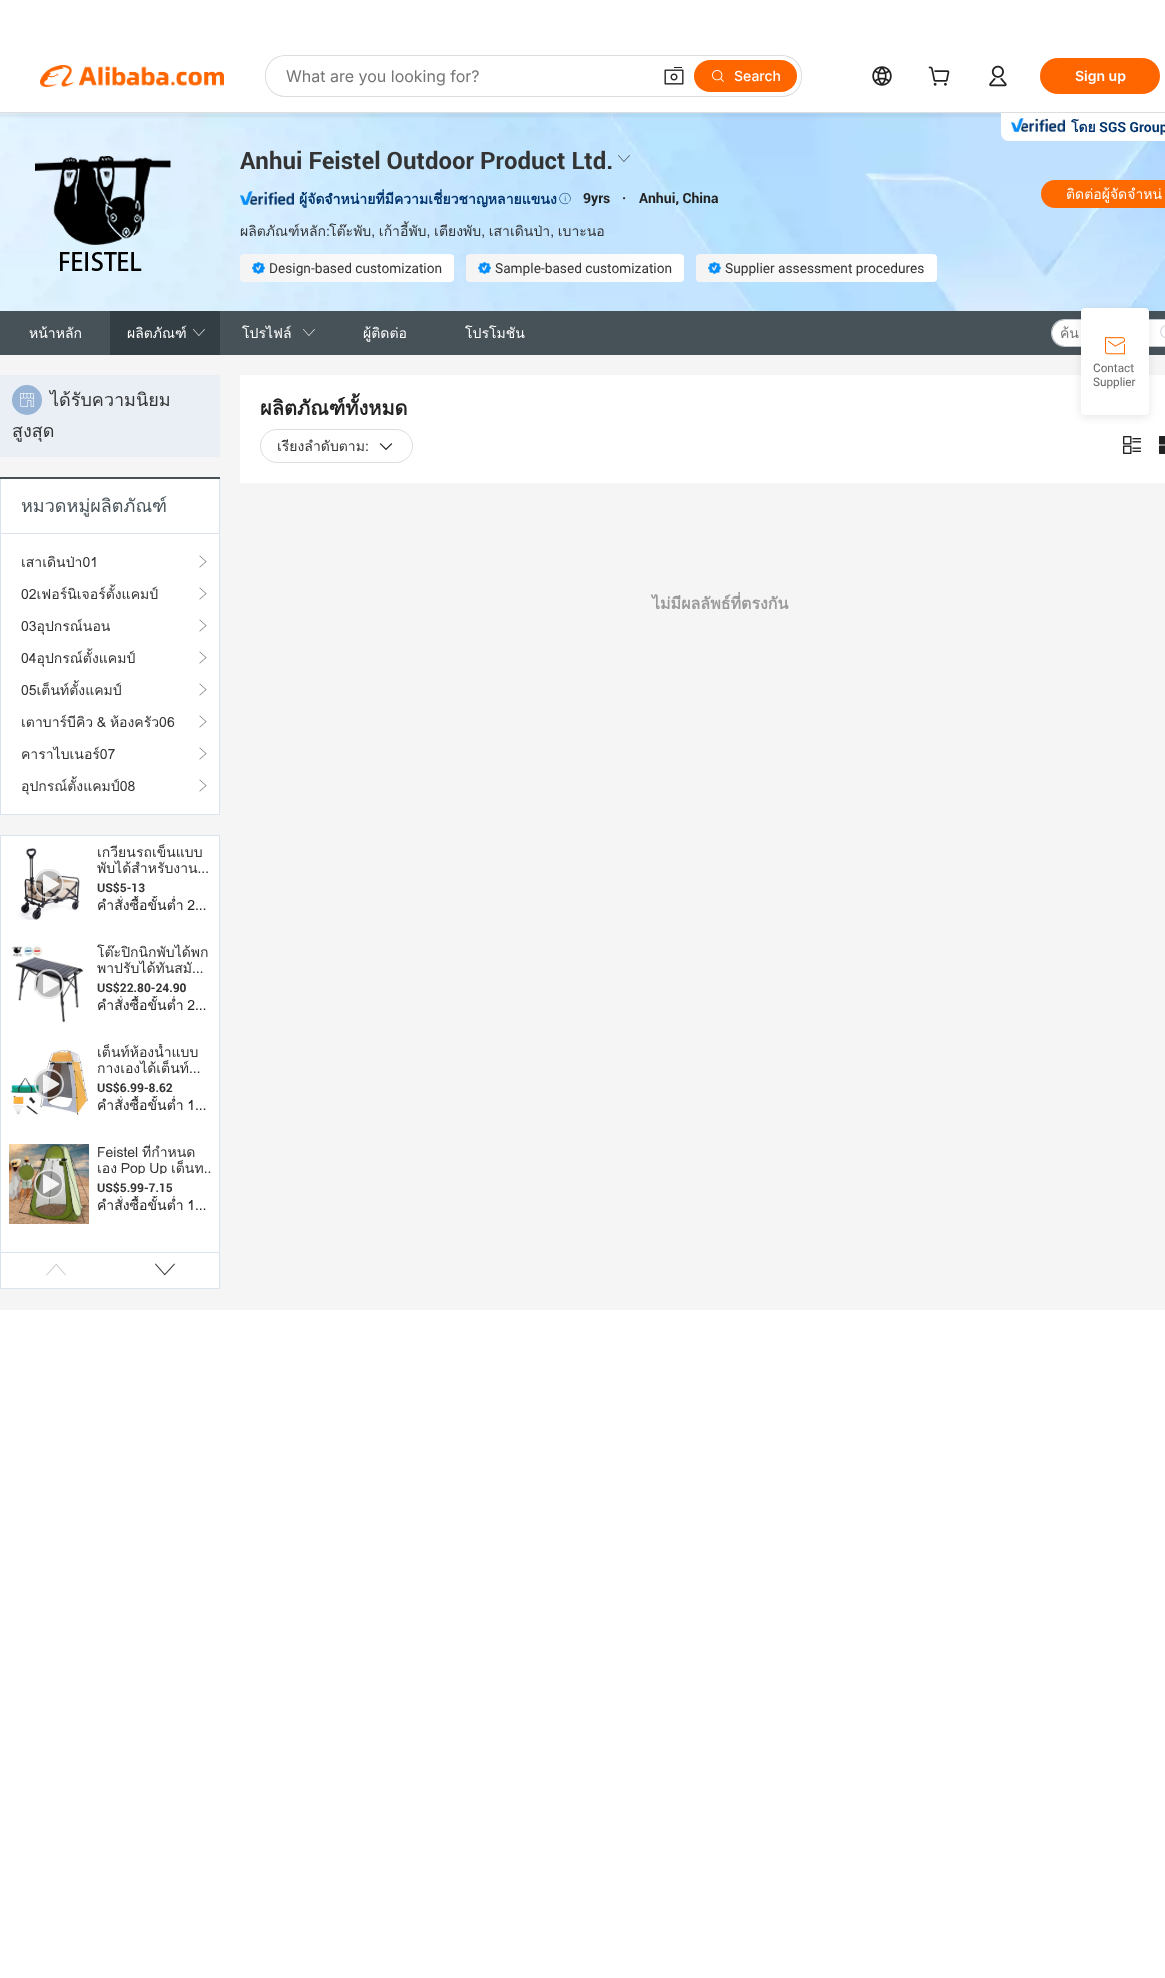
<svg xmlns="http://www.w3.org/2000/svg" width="1165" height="1978">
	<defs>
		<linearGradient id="g1" gradientUnits="userSpaceOnUse" x1="454" y1="268" x2="240" y2="268"><stop offset="0" stop-color="#FFFFFF" /><stop offset="1" stop-color="#F4F4F4" /></linearGradient>
		<linearGradient id="g2" gradientUnits="userSpaceOnUse" x1="684" y1="268" x2="466" y2="268"><stop offset="0" stop-color="#FFFFFF" /><stop offset="1" stop-color="#F4F4F4" /></linearGradient>
		<linearGradient id="g3" gradientUnits="userSpaceOnUse" x1="937" y1="268" x2="696" y2="268"><stop offset="0" stop-color="#FFFFFF" /><stop offset="1" stop-color="#F4F4F4" /></linearGradient>
		<clipPath id="clip1"><rect x="1060" y="322" width="84" height="22" /></clipPath>
		<clipPath id="clip2"><rect x="21" y="770" width="178" height="32" /></clipPath>
		<clipPath id="clip3"><rect x="97" y="844" width="114" height="30" /></clipPath>
		<clipPath id="clip4"><rect x="97" y="896" width="114" height="18" /></clipPath>
		<clipPath id="clip5"><rect x="97" y="996" width="114" height="18" /></clipPath>
		<clipPath id="clip6"><rect x="97" y="1044" width="114" height="30" /></clipPath>
		<clipPath id="clip7"><rect x="97" y="1096" width="114" height="18" /></clipPath>
		<clipPath id="clip8"><rect x="97" y="1144" width="114" height="30" /></clipPath>
		<clipPath id="clip9"><rect x="97" y="1196" width="114" height="18" /></clipPath>
	</defs>
	<rect width="100%" height="100%" fill="#FFFFFF" />
	<image x="0" y="113" width="1165" height="198" href="assets/img7.png" />
	<rect x="-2" y="113" width="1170" height="4" fill="#000000" fill-opacity="0.05" filter="blur(1px)" />
	<rect x="0" y="112" width="1165" height="1" fill="#DDDDDD" />
	<image x="40" y="65" width="184" height="22" href="assets/img1.png" />
	<rect x="265" y="55" width="537" height="42" rx="20" fill="#DDDDDD" />
	<rect x="266" y="56" width="535" height="40" rx="19" fill="#FFFFFF" />
	<text x="286" y="82" font-family="Inter" font-size="16" fill="#757575">What are you looking for?</text>
	<image x="664" y="67" width="20" height="18" href="assets/img2.png" />
	<rect x="694" y="60" width="103" height="32" rx="16" fill="#FF6600" />
	<image x="712" y="70" width="12" height="12" href="assets/img3.png" />
	<text x="734" y="81" font-family="Inter" font-size="14" font-weight="500" fill="#FFFFFF">Search</text>
	<image x="872" y="66" width="20" height="20" href="assets/img4.png" />
	<image x="928" y="66" width="22" height="20" href="assets/img5.png" />
	<image x="989" y="65" width="18" height="22" href="assets/img6.png" />
	<rect x="1040" y="58" width="120" height="36" rx="18" fill="#FF6600" />
	<text x="1075" y="81" font-family="Inter" font-size="14" font-weight="600" fill="#FFFFFF">Sign up</text>
	<path d="M1001 113H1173V133C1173 137.5 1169.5 141 1165 141H1009C1004.5 141 1001 137.5 1001 133Z" fill="#FFFFFF" />
	<image x="1011" y="118" width="54" height="14" href="assets/img8.png" />
	<text x="1071" y="132" font-family="Loma" font-size="14" font-weight="700" fill="#00346E">โดย</text>
	<text x="1099" y="132" font-family="Roboto" font-size="14" font-weight="700" fill="#00346E">SGS Group</text>
	<image x="35" y="156" width="136" height="115" href="assets/img9.png" />
	<text x="240" y="169" font-family="Roboto" font-size="24" font-weight="700" fill="#333333">Anhui Feistel Outdoor Product Ltd.</text>
	<image x="618" y="155" width="12" height="7" href="assets/img10.png" />
	<image x="240" y="191" width="54" height="14" href="assets/img11.png" />
	<text x="299" y="204" font-family="Loma" font-size="14" font-weight="700" fill="#00346E">ผู้จัดจำหน่ายที่มีความเชี่ยวชาญหลายแขนง</text>
	<image x="559" y="192" width="12" height="13" href="assets/img12.png" />
	<g font-family="Roboto" font-size="14" font-weight="700" fill="#222222">
		<text x="583" y="203">9yrs</text>
		<text x="622" y="203">·</text>
		<text x="639" y="203">Anhui, China</text>
	</g>
	<g font-family="Loma" font-size="14" fill="#333333">
		<text x="240" y="236">ผลิตภัณฑ์หลัก:</text>
		<text x="329" y="236" word-spacing="-1">โต๊ะพับ, เก้าอี้พับ, เตียงพับ, เสาเดินป่า, เบาะนอ</text>
	</g>
	<rect x="240" y="254" width="214" height="28" rx="4" fill="url(#g1)" />
	<image x="252" y="262" width="13" height="12" href="assets/img13.png" />
	<text x="269" y="273" font-family="Roboto" font-size="14" fill="#333333">Design-based customization</text>
	<rect x="466" y="254" width="218" height="28" rx="4" fill="url(#g2)" />
	<image x="478" y="262" width="13" height="12" href="assets/img14.png" />
	<text x="495" y="273" font-family="Roboto" font-size="14" fill="#333333">Sample-based customization</text>
	<rect x="696" y="254" width="241" height="28" rx="4" fill="url(#g3)" />
	<image x="708" y="262" width="13" height="12" href="assets/img14.png" />
	<text x="725" y="273" font-family="Roboto" font-size="14" fill="#333333">Supplier assessment procedures</text>
	<rect x="1041" y="180" width="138" height="28" rx="14" fill="#FF6A00" />
	<text x="1066" y="199" font-family="Loma" font-size="14" fill="#FFFFFF">ติดต่อผู้จัดจำหน่</text>
	<rect x="0" y="311" width="1165" height="44" fill="#475258" />
	<text x="29" y="338" font-family="Loma" font-size="14" fill="#FFFFFF">หน้าหลัก</text>
	<rect x="110" y="311" width="110" height="44" fill="#333E44" />
	<text x="127" y="338" font-family="Loma" font-size="14" fill="#FFFFFF">ผลิตภัณฑ์</text>
	<image x="193" y="329" width="12" height="7" href="assets/img15.png" />
	<text x="242" y="338" font-family="Loma" font-size="14" fill="#FFFFFF">โปรไฟล์</text>
	<image x="303" y="329" width="12" height="7" href="assets/img16.png" />
	<g font-family="Loma" font-size="14" fill="#FFFFFF">
		<text x="363" y="338">ผู้ติดต่อ</text>
		<text x="465" y="338">โปรโมชัน</text>
	</g>
	<path d="M1065 319H1152V347H1065C1057 347 1051 341 1051 333C1051 325 1057 319 1065 319ZM1065 320H1152V346H1065C1058 346 1052 340 1052 333C1052 326 1058 320 1065 320Z" fill="#C4C6CF" fill-rule="evenodd" />
	<path d="M1065 320H1151.5C1152 320 1152 320 1152 320.5V345.5C1152 346 1152 346 1151.5 346H1065C1058 346 1052 340 1052 333C1052 326 1058 320 1065 320Z" fill="#FFFFFF" />
	<g clip-path="url(#clip1)">
		<text x="1060" y="338" font-family="Loma" font-size="14" fill="#757575">ค้น</text>
	</g>
	<rect x="1152" y="320" width="13" height="26" fill="#FFFFFF" />
	<path d="M1152 319H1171C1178.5 319 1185 325.5 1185 333C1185 340.5 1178.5 347 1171 347H1152ZM1152 320H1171C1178 320 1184 326 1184 333C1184 340 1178 346 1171 346H1152Z" fill="#C4C6CF" fill-rule="evenodd" />
	<image x="1160" y="325" width="5" height="13" href="assets/img17.png" />
	<rect x="0" y="355" width="1165" height="955" fill="#F5F5F5" />
	<rect x="0" y="375" width="220" height="82" fill="#E9EFF5" />
	<circle cx="27" cy="400" r="15" fill="#97B3D5" />
	<image x="20" y="393" width="14" height="14" href="assets/img18.png" />
	<g font-family="Loma" font-size="18" fill="#333333">
		<text x="50" y="406">ได้รับความนิยม</text>
		<text x="12" y="437">สูงสุด</text>
	</g>
	<rect x="1" y="479" width="218" height="335" fill="#FFFFFF" />
	<rect x="0" y="477" width="220" height="2" fill="#475258" />
	<rect x="219" y="479" width="1" height="336" fill="#DBE3EF" />
	<rect x="0" y="814" width="220" height="1" fill="#DBE3EF" />
	<rect x="0" y="479" width="1" height="336" fill="#DBE3EF" />
	<rect x="1" y="533" width="218" height="1" fill="#DBE3EF" />
	<text x="21" y="512" font-family="Loma" font-size="18" fill="#475258">หมวดหมู่ผลิตภัณฑ์</text>
	<text x="21" y="567" font-family="Loma" font-size="14" fill="#333333">เสาเดินป่า01</text>
	<image x="199" y="555" width="8" height="13" href="assets/img19.png" />
	<text x="21" y="599" font-family="Loma" font-size="14" fill="#333333">02เฟอร์นิเจอร์ตั้งแคมป์</text>
	<image x="199" y="587" width="8" height="13" href="assets/img19.png" />
	<text x="21" y="631" font-family="Loma" font-size="14" fill="#333333">03อุปกรณ์นอน</text>
	<image x="199" y="619" width="8" height="13" href="assets/img19.png" />
	<text x="21" y="663" font-family="Loma" font-size="14" fill="#333333">04อุปกรณ์ตั้งแคมป์</text>
	<image x="199" y="651" width="8" height="13" href="assets/img19.png" />
	<text x="21" y="695" font-family="Loma" font-size="14" fill="#333333">05เต็นท์ตั้งแคมป์</text>
	<image x="199" y="683" width="8" height="13" href="assets/img19.png" />
	<text x="21" y="727" word-spacing="-1" font-family="Loma" font-size="14" fill="#333333">เตาบาร์บีคิว &amp; ห้องครัว06</text>
	<image x="199" y="715" width="8" height="13" href="assets/img19.png" />
	<text x="21" y="759" font-family="Loma" font-size="14" fill="#333333">คาราไบเนอร์07</text>
	<image x="199" y="747" width="8" height="13" href="assets/img19.png" />
	<g clip-path="url(#clip2)">
		<text x="21" y="791" font-family="Loma" font-size="14" fill="#333333">อุปกรณ์ตั้งแคมป์08</text>
	</g>
	<image x="199" y="779" width="8" height="13" href="assets/img19.png" />
	<rect x="0.5" y="835.5" width="219" height="453" fill="#FFFFFF" stroke="#DBE3EF" />
	<image x="18" y="848" width="62" height="72" href="assets/img20.png" />
	<circle cx="49" cy="884" r="15" fill="#000000" fill-opacity="0.27" />
	<circle cx="49" cy="884" r="14" fill="none" stroke="#FFFFFF" stroke-opacity="0.72" stroke-width="2" />
	<image x="42" y="874" width="18" height="20" href="assets/img21.png" />
	<text x="97" y="857" font-family="Loma" font-size="14" fill="#333333">เกวียนรถเข็นแบบ</text>
	<g clip-path="url(#clip3)">
		<text x="97" y="873" font-family="Loma" font-size="14" fill="#333333">พับได้สําหรับงาน…</text>
	</g>
	<text x="97" y="892" font-family="Roboto" font-size="12" font-weight="700" fill="#333333">US$5-13</text>
	<g clip-path="url(#clip4)">
		<text x="97" y="910" word-spacing="-1" font-family="Loma" font-size="14" fill="#222222">คำสั่งซื้อขั้นต่ำ 2…</text>
	</g>
	<image x="11" y="946" width="73" height="77" href="assets/img22.png" />
	<circle cx="49" cy="984" r="15" fill="#000000" fill-opacity="0.27" />
	<circle cx="49" cy="984" r="14" fill="none" stroke="#FFFFFF" stroke-opacity="0.72" stroke-width="2" />
	<image x="43" y="974" width="17" height="20" href="assets/img23.png" />
	<g font-family="Loma" font-size="14" fill="#333333">
		<text x="97" y="957">โต๊ะปิกนิกพับได้พก</text>
		<text x="97" y="973">พาปรับได้ทันสมั…</text>
	</g>
	<text x="97" y="992" font-family="Roboto" font-size="12" font-weight="700" fill="#333333">US$22.80-24.90</text>
	<g clip-path="url(#clip5)">
		<text x="97" y="1010" word-spacing="-1" font-family="Loma" font-size="14" fill="#222222">คำสั่งซื้อขั้นต่ำ 2…</text>
	</g>
	<image x="10" y="1050" width="79" height="65" href="assets/img24.png" />
	<circle cx="49" cy="1084" r="15" fill="#000000" fill-opacity="0.27" />
	<circle cx="49" cy="1084" r="14" fill="none" stroke="#FFFFFF" stroke-opacity="0.72" stroke-width="2" />
	<image x="43" y="1074" width="17" height="20" href="assets/img25.png" />
	<g clip-path="url(#clip6)">
		<text x="97" y="1057" font-family="Loma" font-size="14" fill="#333333">เต็นท์ห้องน้ำแบบ</text>
	</g>
	<text x="97" y="1073" font-family="Loma" font-size="14" fill="#333333">กางเองได้เต็นท์…</text>
	<text x="97" y="1092" font-family="Roboto" font-size="12" font-weight="700" fill="#333333">US$6.99-8.62</text>
	<g clip-path="url(#clip7)">
		<text x="97" y="1110" word-spacing="-1" font-family="Loma" font-size="14" fill="#222222">คำสั่งซื้อขั้นต่ำ 1…</text>
	</g>
	<image x="9" y="1144" width="80" height="80" href="assets/img26.png" />
	<circle cx="49" cy="1184" r="15" fill="#000000" fill-opacity="0.27" />
	<circle cx="49" cy="1184" r="14" fill="none" stroke="#FFFFFF" stroke-opacity="0.72" stroke-width="2" />
	<image x="43" y="1174" width="17" height="20" href="assets/img27.png" />
	<g clip-path="url(#clip8)">
		<g font-family="Loma" font-size="14" fill="#333333">
			<text x="97" y="1157" word-spacing="-1">Feistel ที่กําหนด</text>
			<text x="97" y="1173" word-spacing="-1">เอง Pop Up เต็นท…</text>
		</g>
	</g>
	<text x="97" y="1192" font-family="Roboto" font-size="12" font-weight="700" fill="#333333">US$5.99-7.15</text>
	<g clip-path="url(#clip9)">
		<text x="97" y="1210" word-spacing="-1" font-family="Loma" font-size="14" fill="#222222">คำสั่งซื้อขั้นต่ำ 1…</text>
	</g>
	<rect x="1" y="1252" width="218" height="1" fill="#DBE3EF" />
	<image x="46" y="1263" width="20" height="13" href="assets/img28.png" />
	<image x="155" y="1263" width="20" height="13" href="assets/img29.png" />
	<rect x="240" y="375" width="925" height="108" fill="#FFFFFF" />
	<text x="260" y="415" font-family="Loma" font-size="20" font-weight="700" fill="#222222">ผลิตภัณฑ์ทั้งหมด</text>
	<rect x="260.5" y="429.5" width="152" height="33" rx="16.5" fill="none" stroke="#DDDDDD" />
	<text x="277" y="451" font-family="Loma" font-size="14" fill="#333333">เรียงลำดับตาม:</text>
	<image x="379" y="443" width="14" height="7" href="assets/img30.png" />
	<image x="1123" y="436" width="18" height="18" href="assets/img31.png" />
	<image x="1159" y="436" width="6" height="18" href="assets/img32.png" />
	<text x="652" y="609" font-family="Loma" font-size="16" font-weight="700" fill="#999999">ไม่มีผลลัพธ์ที่ตรงกัน</text>
	<rect x="1081" y="310" width="68" height="107" rx="4" fill="#000000" fill-opacity="0.1" filter="blur(5px)" />
	<rect x="1081" y="308" width="68" height="107" rx="4" fill="#FFFFFF" />
	<image x="1105" y="337" width="20" height="18" href="assets/img33.png" />
	<g font-family="Roboto" font-size="12" fill="#666666">
		<text x="1093" y="372">Contact</text>
		<text x="1093" y="386">Supplier</text>
	</g>
</svg>
